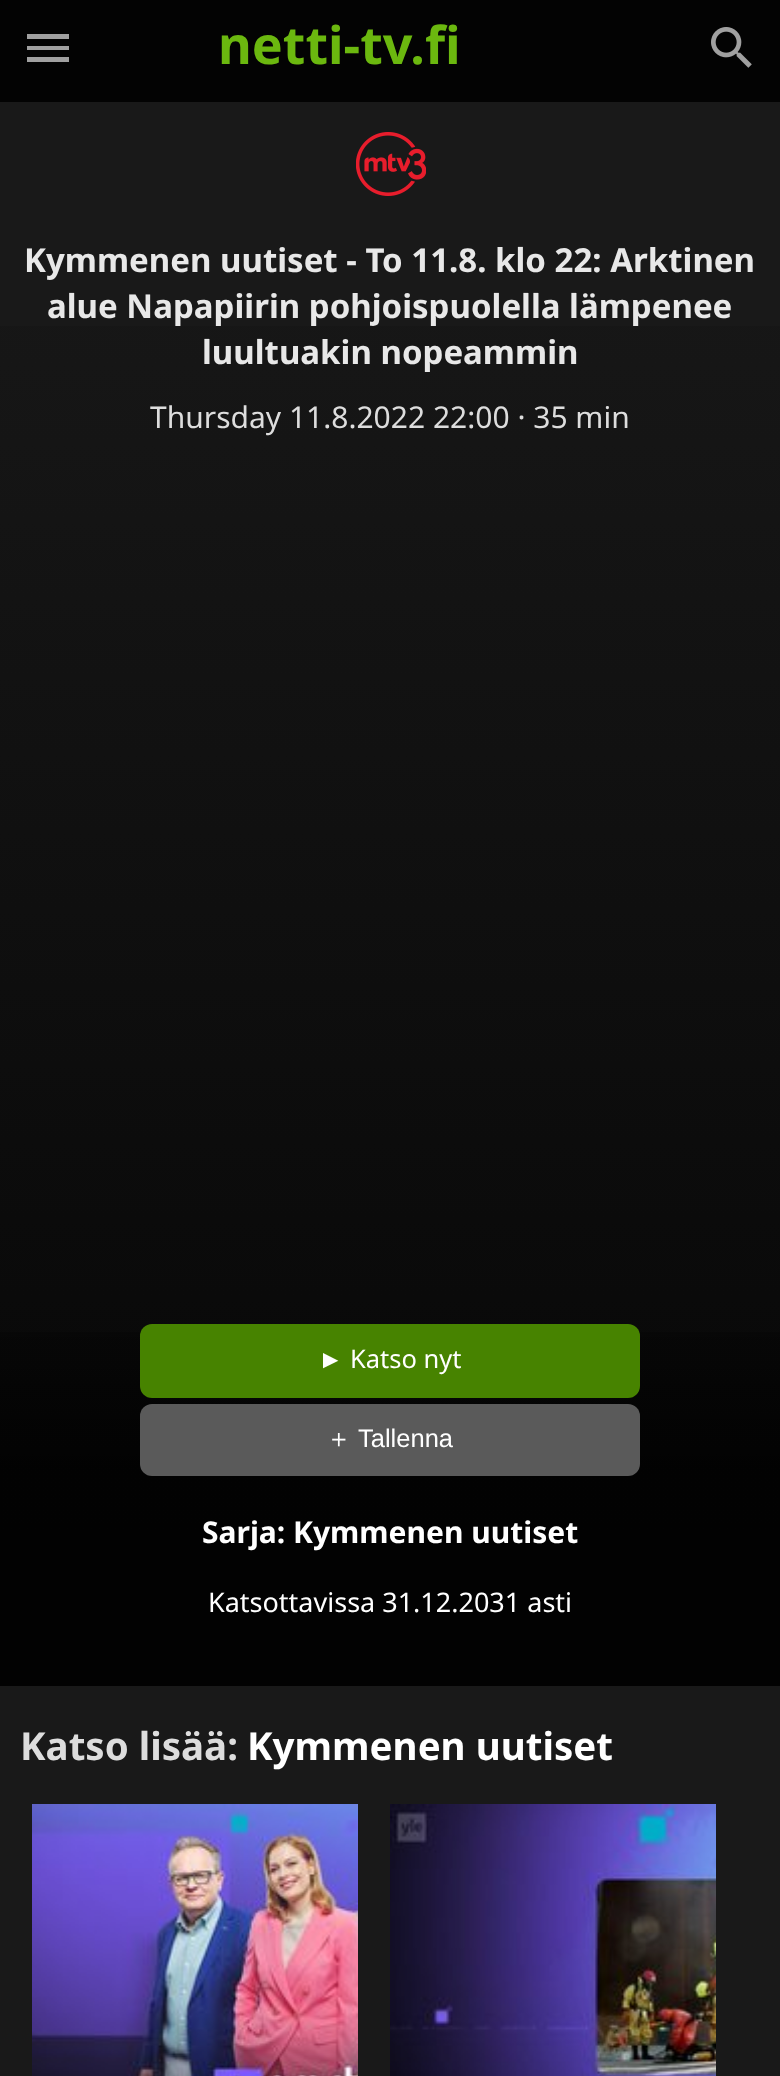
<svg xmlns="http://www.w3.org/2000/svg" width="780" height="2076">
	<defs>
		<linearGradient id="g1" gradientUnits="userSpaceOnUse" x1="390" y1="1686" x2="390" y2="132"><stop offset="0.1" stop-color="#070707" /><stop offset="1" stop-color="#191919" /></linearGradient>
		<linearGradient id="g2" gradientUnits="userSpaceOnUse" x1="390" y1="1686" x2="390" y2="1256"><stop offset="0.5" stop-color="#000000" stop-opacity="0.74" /><stop offset="1" stop-color="#000000" stop-opacity="0" /></linearGradient>
	</defs>
	<rect width="100%" height="100%" fill="#191919" />
	<rect x="0" y="0" width="780" height="102" fill="#030303" />
	<path d="M27 62H69V57H27ZM27 50H69V46H27ZM27 34V39H69V34Z" fill="#A0A0A0" />
	<text x="218" y="64" font-family="Noto Sans" font-size="52" font-weight="700" fill="#6BB80F">netti-tv.fi</text>
	<image x="711" y="27" width="41" height="41" href="assets/img1.png" />
	<rect x="0" y="326" width="780" height="1360" fill="url(#g1)" />
	<image x="356" y="132" width="70" height="64" href="assets/img2.png" />
	<g font-family="Noto Sans" font-size="33" font-weight="700" fill="#E8E8E8">
		<text x="24" y="272">Kymmenen uutiset - To 11.8. klo 22: Arktinen</text>
		<text x="47" y="318">alue Napapiirin pohjoispuolella lämpenee</text>
		<text x="202" y="364">luultuakin nopeammin</text>
	</g>
	<text x="150" y="428" font-family="Noto Sans" font-size="30" fill="#DDDDDD">Thursday 11.8.2022 22:00 · 35 min</text>
	<rect x="0" y="1332" width="780" height="354" fill="url(#g2)" />
	<rect x="140" y="1324" width="500" height="74" rx="12" fill="#478300" />
	<text x="318" y="1368" font-family="Liberation Sans" font-size="25.5" fill="#FFFFFF">►</text>
	<text x="350" y="1368" font-family="Noto Sans" font-size="25.5" fill="#FFFFFF">Katso nyt</text>
	<rect x="140" y="1404" width="500" height="72" rx="12" fill="#5A5A5A" />
	<text x="326" y="1447" font-family="WenQuanYi Zen Hei" font-size="25.5" font-weight="500" fill="#FFFFFF">＋</text>
	<text x="358" y="1447" font-family="Liberation Sans" font-size="25.5" fill="#FFFFFF">Tallenna</text>
	<text x="202" y="1543" font-family="Noto Sans" font-size="30" font-weight="700" fill="#FFFFFF">Sarja: Kymmenen uutiset</text>
	<text x="208" y="1612" font-family="Noto Sans" font-size="27" fill="#FFFFFF">Katsottavissa 31.12.2031 asti</text>
	<text x="20" y="1760" font-family="Noto Sans" font-size="38.5" font-weight="700" fill="#DDDDDD">Katso lisää:</text>
	<text x="247" y="1760" font-family="Noto Sans" font-size="38.5" font-weight="700" fill="#FFFFFF">Kymmenen uutiset</text>
	<image x="32" y="1804" width="326" height="272" href="assets/img3.png" />
	<image x="390" y="1804" width="326" height="272" href="assets/img4.png" />
</svg>
